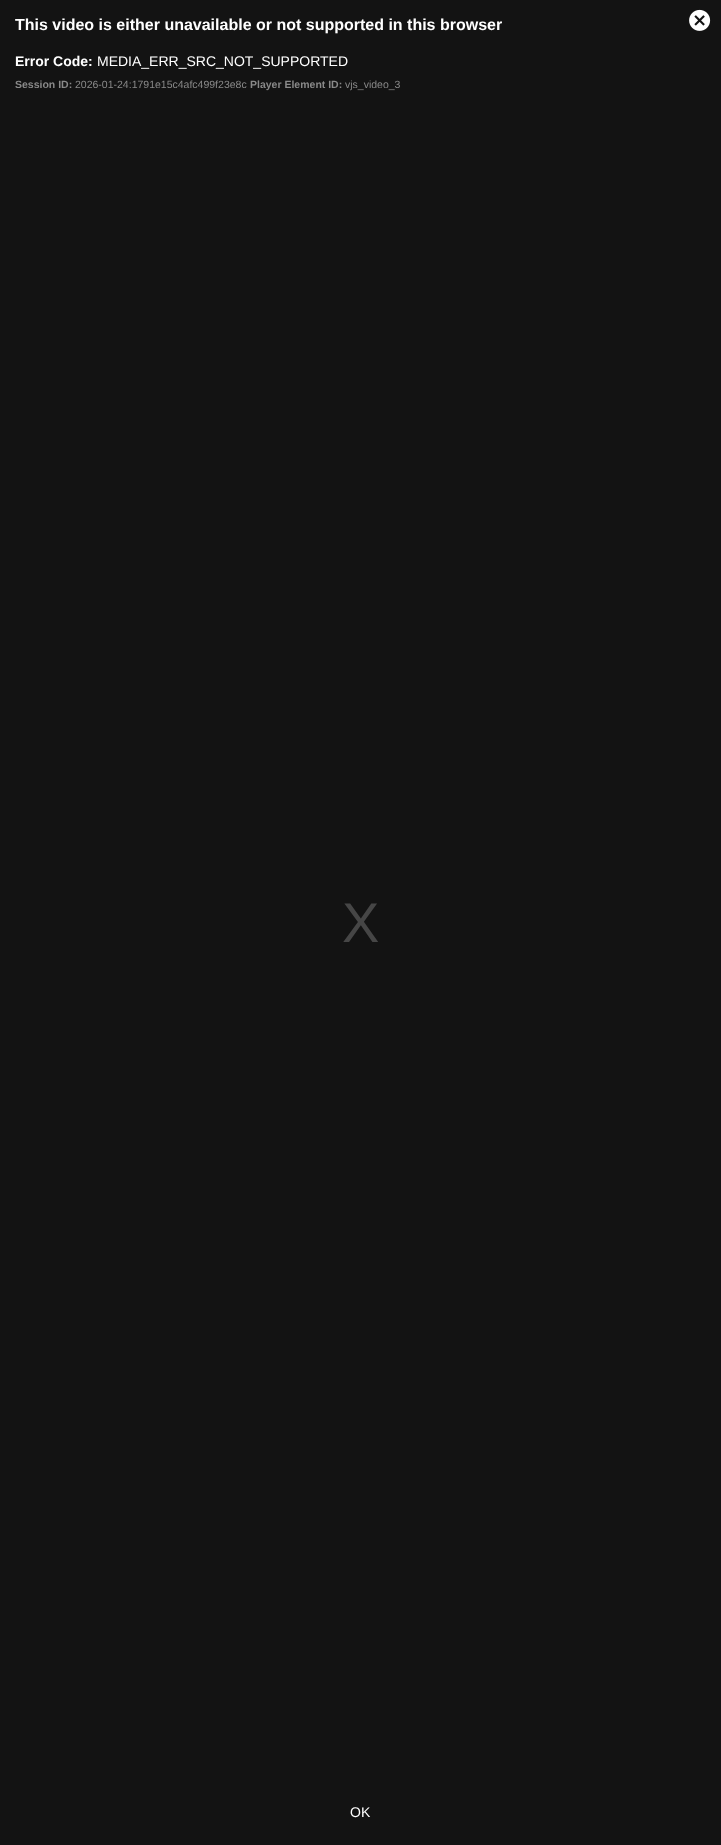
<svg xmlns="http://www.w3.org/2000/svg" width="721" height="1845">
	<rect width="100%" height="100%" fill="#131313" />
	<text x="15" y="30" font-family="Liberation Sans" font-size="16" font-weight="700" fill="#FFFFFF">This video is either unavailable or not supported in this browser</text>
	<text x="15" y="66" font-family="Liberation Sans" font-size="14" font-weight="700" fill="#FFFFFF">Error Code:</text>
	<text x="97" y="66" font-family="Liberation Sans" font-size="14" fill="#FFFFFF">MEDIA_ERR_SRC_NOT_SUPPORTED</text>
	<text x="15" y="88" font-family="Liberation Sans" font-size="10.5" font-weight="700" fill="#898989">Session ID:</text>
	<text x="75" y="88" font-family="Liberation Sans" font-size="10.5" fill="#898989">2026-01-24:1791e15c4afc499f23e8c</text>
	<text x="250" y="88" font-family="Liberation Sans" font-size="10.5" font-weight="700" fill="#898989">Player Element ID:</text>
	<text x="345" y="88" font-family="Liberation Sans" font-size="10.5" fill="#898989">vjs_video_3</text>
	<image x="689" y="9" width="22" height="22" href="assets/img1.png" />
	<text x="350" y="1817" font-family="Liberation Sans" font-size="14" fill="#FFFFFF">OK</text>
	<text x="342" y="942" font-family="Liberation Sans" font-size="56" fill="#464646">X</text>
</svg>
